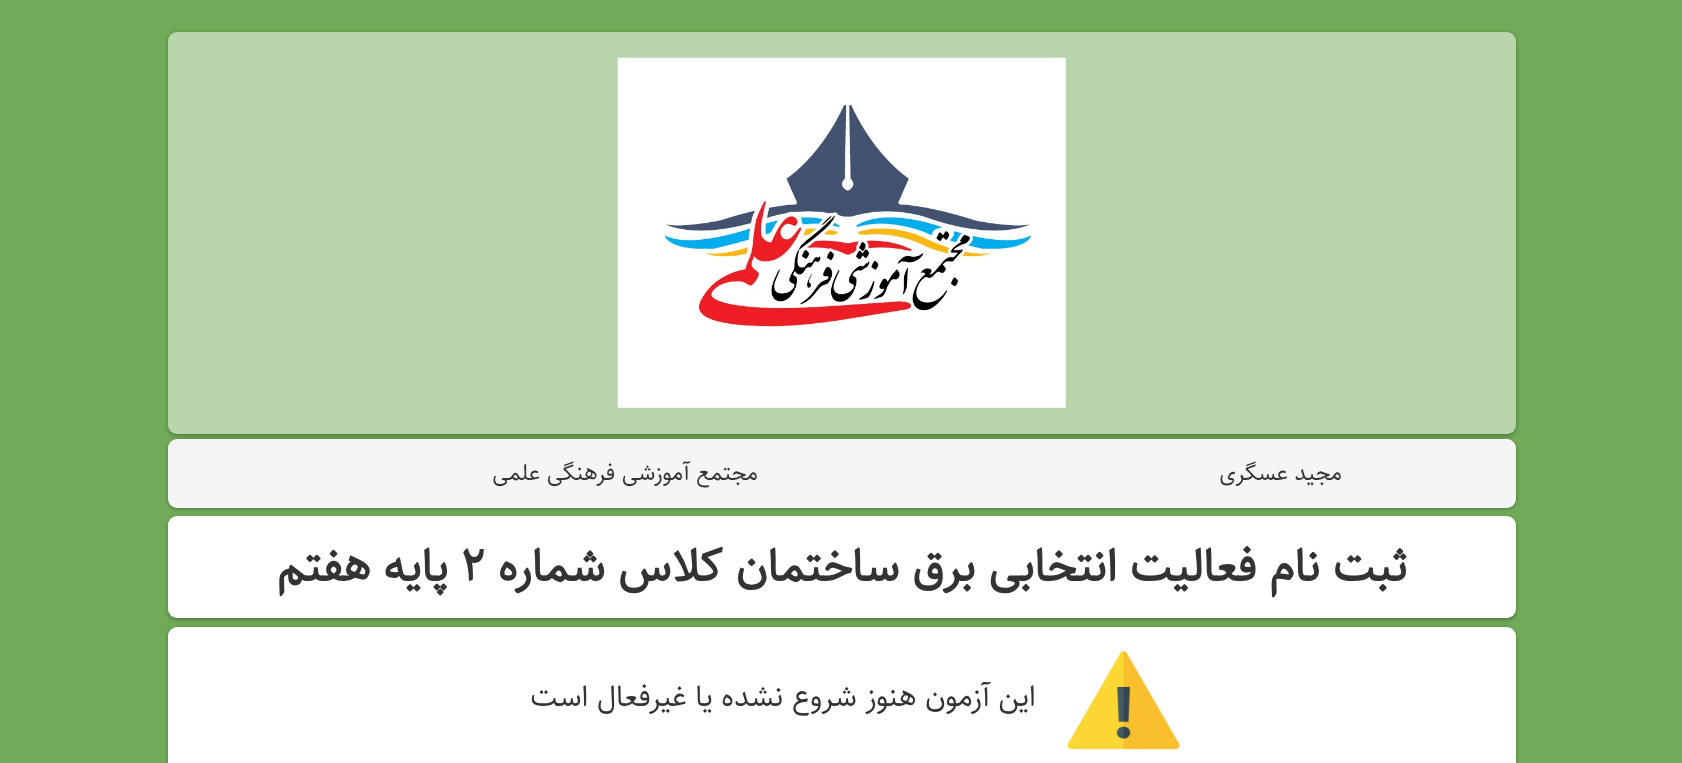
<svg xmlns="http://www.w3.org/2000/svg" width="1682" height="763">
	<defs>
		<clipPath id="clip1"><path d="M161 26H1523V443H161ZM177 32H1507C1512 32 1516 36 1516 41V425C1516 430 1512 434 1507 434H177C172 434 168 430 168 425V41C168 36 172 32 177 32Z" clip-rule="evenodd" /></clipPath>
	</defs>
	<rect width="100%" height="100%" fill="#71AB58" />
	<g clip-path="url(#clip1)">
		<rect x="168" y="33" width="1348" height="403" rx="9" fill="#000000" fill-opacity="0.3" filter="blur(2px)" />
	</g>
	<rect x="168" y="32" width="1348" height="402" rx="9" fill="#FFFFFF" fill-opacity="0.5" />
	<image x="617" y="57" width="449" height="351" href="assets/img1.png" />
	<rect x="168" y="441" width="1348" height="68" rx="9" fill="#000000" fill-opacity="0.3" filter="blur(2px)" />
	<rect x="168" y="439" width="1348" height="69" rx="9" fill="#F5F5F5" />
	<g font-family="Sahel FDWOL" font-size="23.25" direction="rtl" fill="#333333">
		<text x="1342" y="480">مجید عسگری</text>
		<text x="758" y="480">مجتمع آموزشی فرهنگی علمی</text>
	</g>
	<rect x="168" y="518" width="1348" height="102" rx="9" fill="#000000" fill-opacity="0.3" filter="blur(2px)" />
	<rect x="168" y="516" width="1348" height="102" rx="9" fill="#FFFFFF" />
	<text x="1407" y="581" font-family="Sahel FDWOL" font-size="46.7" font-weight="700" direction="rtl" fill="#333333">ثبت نام فعالیت انتخابی برق ساختمان کلاس شماره</text>
	<text x="460" y="581" font-family="Sahel FDWOL" font-size="46.7" font-weight="700" fill="#333333">2</text>
	<text x="448" y="581" font-family="Sahel FDWOL" font-size="46.7" font-weight="700" direction="rtl" fill="#333333">پایه هفتم</text>
	<rect x="168" y="628" width="1348" height="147" rx="9" fill="#000000" fill-opacity="0.3" filter="blur(2px)" />
	<rect x="168" y="627" width="1348" height="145" rx="9" fill="#FFFFFF" />
	<image x="1067" y="650" width="113" height="100" href="assets/img2.png" />
	<text x="1036" y="706" font-family="Sahel FDWOL" font-size="30.3" direction="rtl" fill="#333333">این آزمون هنوز شروع نشده یا غیرفعال است</text>
</svg>
